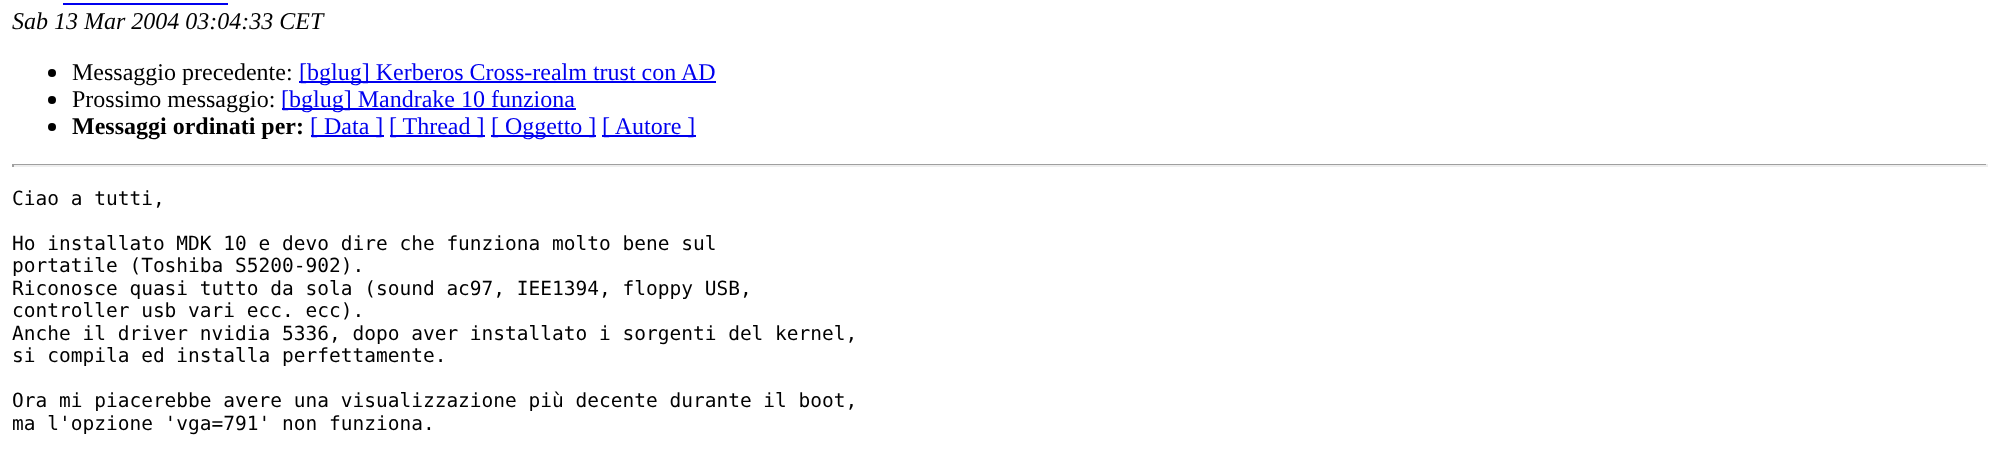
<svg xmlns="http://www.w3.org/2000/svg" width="1999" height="463">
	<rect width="100%" height="100%" fill="#FFFFFF" />
	<rect x="63" y="3" width="165" height="2" fill="#0000EE" />
	<text x="12" y="29" font-family="Liberation Serif" font-size="24" font-style="italic" fill="#000000">Sab 13 Mar 2004 03:04:33 CET</text>
	<circle cx="52" cy="73" r="4" fill="#000000" />
	<text x="72" y="80" font-family="Liberation Serif" font-size="24" fill="#000000">Messaggio precedente:</text>
	<rect x="299" y="81" width="417" height="2" fill="#0000EE" />
	<text x="299" y="80" font-family="Liberation Serif" font-size="24" fill="#0000EE">[bglug] Kerberos Cross-realm trust con AD</text>
	<circle cx="52" cy="100" r="4" fill="#000000" />
	<text x="72" y="107" font-family="Liberation Serif" font-size="24" fill="#000000">Prossimo messaggio:</text>
	<rect x="282" y="108" width="294" height="2" fill="#0000EE" />
	<text x="281" y="107" font-family="Liberation Serif" font-size="24" fill="#0000EE">[bglug] Mandrake 10 funziona</text>
	<circle cx="52" cy="127" r="4" fill="#000000" />
	<text x="72" y="134" font-family="Liberation Serif" font-size="24" font-weight="700" fill="#000000">Messaggi ordinati per:</text>
	<rect x="311" y="135" width="73" height="2" fill="#0000EE" />
	<text x="310" y="134" font-family="Liberation Serif" font-size="24" fill="#0000EE">[ Data ]</text>
	<rect x="390" y="135" width="95" height="2" fill="#0000EE" />
	<text x="389" y="134" font-family="Liberation Serif" font-size="24" fill="#0000EE">[ Thread ]</text>
	<rect x="491" y="135" width="105" height="2" fill="#0000EE" />
	<text x="491" y="134" font-family="Liberation Serif" font-size="24" fill="#0000EE">[ Oggetto ]</text>
	<rect x="602" y="135" width="94" height="2" fill="#0000EE" />
	<text x="602" y="134" font-family="Liberation Serif" font-size="24" fill="#0000EE">[ Autore ]</text>
	<rect x="12" y="164" width="1976" height="1" fill="#9F9F9F" />
	<rect x="1986" y="164" width="2" height="3" fill="#EEEEEE" />
	<rect x="12" y="165" width="1976" height="2" fill="#EEEEEE" />
	<rect x="12" y="164" width="2" height="3" fill="#9F9F9F" />
	<g font-family="DejaVu Sans Mono" font-size="19.5" fill="#000000">
		<text x="12" y="205">Ciao a tutti,</text>
		<text x="12" y="250">Ho installato MDK 10 e devo dire che funziona molto bene sul</text>
		<text x="12" y="272">portatile (Toshiba S5200-902).</text>
		<text x="12" y="295">Riconosce quasi tutto da sola (sound ac97, IEE1394, floppy USB,</text>
		<text x="12" y="317">controller usb vari ecc. ecc).</text>
		<text x="12" y="340">Anche il driver nvidia 5336, dopo aver installato i sorgenti del kernel,</text>
		<text x="12" y="362">si compila ed installa perfettamente.</text>
		<text x="12" y="407">Ora mi piacerebbe avere una visualizzazione più decente durante il boot,</text>
		<text x="12" y="430">ma l'opzione 'vga=791' non funziona.</text>
	</g>
</svg>
